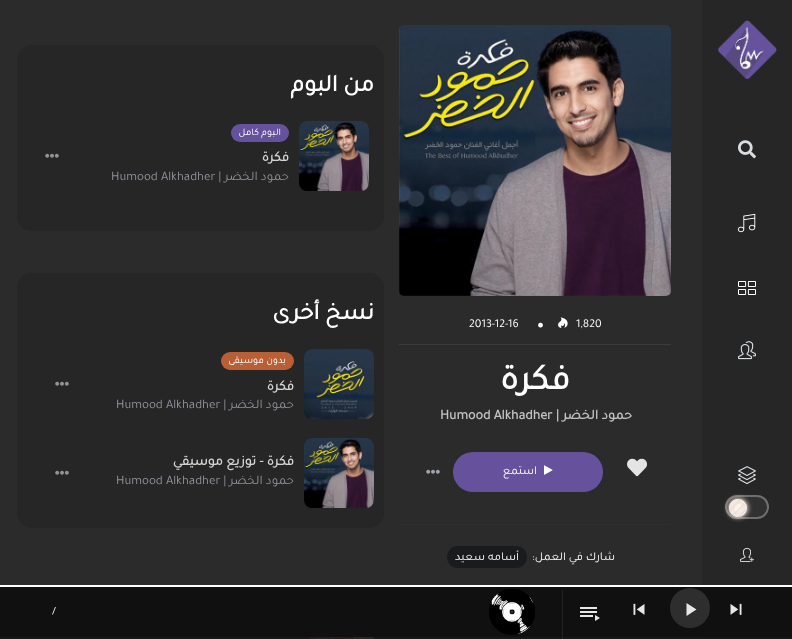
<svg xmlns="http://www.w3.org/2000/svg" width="792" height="639">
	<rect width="100%" height="100%" fill="#2B2B2B" />
	<rect x="0" y="637" width="702" height="2" fill="#161717" />
	<rect x="702" y="0" width="90" height="585" fill="#262626" />
	<image x="718" y="20" width="59" height="60" href="assets/img1.png" />
	<rect x="702" y="637" width="90" height="2" fill="#151617" />
	<image x="738" y="140" width="18" height="19" href="assets/img2.png" />
	<image x="737" y="213" width="19" height="20" href="assets/img3.png" />
	<image x="738" y="281" width="18" height="14" href="assets/img4.png" />
	<image x="738" y="341" width="18" height="19" href="assets/img5.png" />
	<image x="738" y="466" width="18" height="19" href="assets/img6.png" />
	<rect x="725" y="495" width="44" height="24" rx="12" fill="#313131" />
	<rect x="726" y="496" width="42" height="22" rx="11" fill="none" stroke="#CCCCCC" stroke-opacity="0.4" stroke-width="2" />
	<rect x="728" y="498" width="20" height="20" rx="10" fill="#EDDDD4" filter="blur(2.5px)" />
	<image x="729" y="499" width="18" height="18" href="assets/img7.png" />
	<circle cx="738" cy="508" r="6.5" fill="none" stroke="#EDDDD4" stroke-opacity="0.5" stroke-width="5" />
	<image x="740" y="547" width="14" height="15" href="assets/img8.png" />
	<image x="399" y="25" width="272" height="271" href="assets/img9.png" />
	<rect x="399" y="344" width="272" height="1" fill="#3C3C3C" />
	<text x="576" y="327" font-family="Tajawal" font-size="12" fill="#FFFFFF">1,820</text>
	<image x="558" y="317" width="10" height="11" href="assets/img10.png" />
	<image x="538" y="322" width="5" height="6" href="assets/img11.png" />
	<text x="469" y="327" font-family="Tajawal" font-size="12" fill="#FFFFFF">2013-12-16</text>
	<text x="570" y="389" font-family="Tajawal" font-size="36" font-weight="700" direction="rtl" fill="#FFFFFF">فكرة</text>
	<text x="632" y="419" font-family="Tajawal" font-size="14" font-weight="700" direction="rtl" fill="#C1C1C1">حمود الخضر |</text>
	<text x="440" y="419" font-family="Tajawal" font-size="14" font-weight="700" fill="#C1C1C1">Humood Alkhadher</text>
	<image x="627" y="458" width="20" height="19" href="assets/img12.png" />
	<rect x="453" y="452" width="150" height="40" rx="20" fill="#66529C" />
	<image x="544" y="465" width="9" height="10" href="assets/img13.png" />
	<text x="537" y="474" font-family="Tajawal" font-size="12" direction="rtl" fill="#FFFFFF">استمع</text>
	<image x="426" y="469" width="14" height="5" href="assets/img14.png" />
	<rect x="399" y="524" width="272" height="1" fill="#2F2F2F" />
	<text x="615" y="560" font-family="Tajawal" font-size="12" direction="rtl" fill="#FFFFFF">شارك في العمل:</text>
	<rect x="447" y="546" width="80" height="22" rx="11" fill="#1A1B1D" />
	<text x="519" y="560" font-family="Tajawal" font-size="12" direction="rtl" fill="#FFFFFF">أسامه سعيد</text>
	<rect x="17" y="45" width="367" height="186" rx="15" fill="#262626" />
	<text x="374" y="91" font-family="Tajawal" font-size="24" font-weight="700" direction="rtl" fill="#FFFFFF">من البوم</text>
	<rect x="299" y="121" width="70" height="70" rx="8" fill="#1F1F1F" />
	<image x="299" y="121" width="70" height="70" href="assets/img15.png" />
	<rect x="231" y="124" width="58" height="18" rx="9" fill="#66529C" />
	<text x="281" y="135" font-family="Tajawal" font-size="10" direction="rtl" fill="#FFFFFF">البوم كامل</text>
	<text x="289" y="161" font-family="Tajawal" font-size="14" font-weight="700" direction="rtl" fill="#D2D2D2">فكرة</text>
	<text x="289" y="180" font-family="Tajawal" font-size="13" direction="rtl" fill="#92929D">حمود الخضر |</text>
	<text x="111" y="180" font-family="Tajawal" font-size="13" fill="#92929D">Humood Alkhadher</text>
	<image x="45" y="153" width="14" height="5" href="assets/img16.png" />
	<rect x="17" y="273" width="367" height="255" rx="15" fill="#262626" />
	<text x="374" y="319" font-family="Tajawal" font-size="24" font-weight="700" direction="rtl" fill="#FFFFFF">نسخ أخرى</text>
	<rect x="304" y="349" width="70" height="70" rx="8" fill="#1F1F1F" />
	<image x="304" y="349" width="70" height="70" href="assets/img17.png" />
	<rect x="221" y="352" width="73" height="18" rx="9" fill="#B85F36" />
	<text x="286" y="363" font-family="Tajawal" font-size="10" direction="rtl" fill="#FFFFFF">بدون موسيقى</text>
	<text x="294" y="390" font-family="Tajawal" font-size="14" font-weight="700" direction="rtl" fill="#D2D2D2">فكرة</text>
	<text x="294" y="408" font-family="Tajawal" font-size="13" direction="rtl" fill="#92929D">حمود الخضر |</text>
	<text x="116" y="408" font-family="Tajawal" font-size="13" fill="#92929D">Humood Alkhadher</text>
	<image x="55" y="381" width="14" height="5" href="assets/img16.png" />
	<rect x="304" y="438" width="70" height="70" rx="8" fill="#1F1F1F" />
	<image x="304" y="438" width="70" height="70" href="assets/img18.png" />
	<text x="294" y="465" font-family="Tajawal" font-size="14" font-weight="700" direction="rtl" fill="#D2D2D2">فكرة - توزيع موسيقي</text>
	<text x="294" y="484" font-family="Tajawal" font-size="13" direction="rtl" fill="#92929D">حمود الخضر |</text>
	<text x="116" y="484" font-family="Tajawal" font-size="13" fill="#92929D">Humood Alkhadher</text>
	<image x="55" y="470" width="14" height="5" href="assets/img16.png" />
	<image x="309" y="637" width="65" height="2" href="assets/img19.png" />
	<rect x="0" y="587" width="792" height="50" fill="#101010" />
	<rect x="0" y="585" width="792" height="2" fill="#FFFFFF" />
	<image x="730" y="603" width="12" height="12" href="assets/img20.png" />
	<circle cx="690" cy="608" r="20" fill="#2E2E2E" />
	<path d="M686.5 603V616L696.5 609.5Z" fill="#E7E7E7" />
	<image x="633" y="603" width="12" height="12" href="assets/img21.png" />
	<rect x="562" y="590" width="1" height="49" fill="#222222" />
	<image x="580" y="607" width="20" height="14" href="assets/img22.png" />
	<image x="489" y="589" width="46" height="46" href="assets/img23.png" />
	<text x="52" y="614" font-family="Roboto" font-size="10" fill="#FFFFFF">/</text>
</svg>
